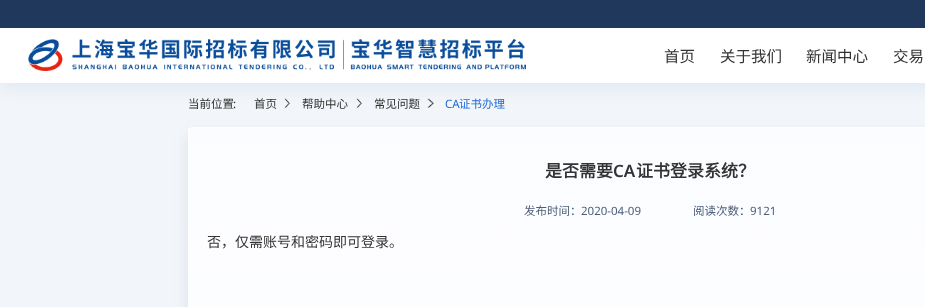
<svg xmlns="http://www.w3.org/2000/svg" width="925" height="307">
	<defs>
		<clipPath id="clip1"><rect x="188" y="127" width="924" height="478" rx="4" /></clipPath>
		<linearGradient id="g1" gradientUnits="userSpaceOnUse" x1="650" y1="128" x2="650" y2="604"><stop offset="0" stop-color="#FBFCFF" /><stop offset="1" stop-color="#FFFFFF" /></linearGradient>
	</defs>
	<rect width="100%" height="100%" fill="#F2F5F9" />
	<image x="284" y="98" width="6" height="10" href="assets/img2.png" />
	<image x="356" y="98" width="6" height="10" href="assets/img3.png" />
	<image x="427" y="98" width="7" height="10" href="assets/img4.png" />
	<rect x="0" y="4" width="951" height="83" fill="#0050B4" fill-opacity="0.08" filter="blur(8.5px)" />
	<rect x="0" y="0" width="925" height="28" fill="#1F385C" />
	<rect x="0" y="28" width="925" height="55" fill="#FFFFFF" />
	<image x="28" y="39" width="498" height="32" href="assets/img1.png" />
	<g font-family="Noto Sans CJK SC" font-size="15.5" fill="#333333">
		<text x="664" y="62">首页</text>
		<text x="720" y="62">关于我们</text>
		<text x="806" y="62">新闻中心</text>
		<text x="893" y="62">交易</text>
	</g>
	<text x="188" y="108" font-family="Noto Sans CJK SC" font-size="11.5" fill="#333333">当前位置</text>
	<text x="233" y="108" font-family="Noto Sans" font-size="11.5" fill="#333333">:</text>
	<g font-family="Noto Sans CJK SC" font-size="11.5" fill="#333333">
		<text x="254" y="108">首页</text>
		<text x="302" y="108">帮助中心</text>
		<text x="374" y="108">常见问题</text>
	</g>
	<text x="445" y="108" font-family="Noto Sans" font-size="11.5" fill="#1D6AD8">CA</text>
	<text x="459" y="108" font-family="Noto Sans CJK SC" font-size="11.5" fill="#1D6AD8">证书办理</text>
	<rect x="188" y="134" width="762" height="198" rx="4" fill="#6788B1" fill-opacity="0.15" filter="blur(7px)" />
	<g clip-path="url(#clip1)">
		<rect x="188" y="128" width="737" height="179" fill="url(#g1)" />
	</g>
	<rect x="188.5" y="127.5" width="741" height="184" rx="3.5" fill="none" stroke="#FFFFFF" />
	<text x="545" y="177" font-family="Noto Sans CJK SC" font-size="17" font-weight="700" fill="#333333">是否需要</text>
	<text x="613" y="177" font-family="Noto Sans" font-size="17" font-weight="600" fill="#333333">CA</text>
	<text x="636" y="177" font-family="Noto Sans CJK SC" font-size="17" font-weight="700" fill="#333333">证书登录系统？</text>
	<text x="524" y="215" font-family="Noto Sans CJK SC" font-size="11.5" fill="#4E5E79">发布时间：</text>
	<text x="581" y="215" font-family="Noto Sans" font-size="11.5" fill="#4E5E79">2020-04-09</text>
	<text x="693" y="215" font-family="Noto Sans CJK SC" font-size="11.5" fill="#4E5E79">阅读次数：</text>
	<text x="750" y="215" font-family="Noto Sans" font-size="11.5" fill="#4E5E79">9121</text>
	<text x="207" y="247" font-family="Noto Sans CJK SC" font-size="14" fill="#333333">否，仅需账号和密码即可登录。</text>
</svg>
